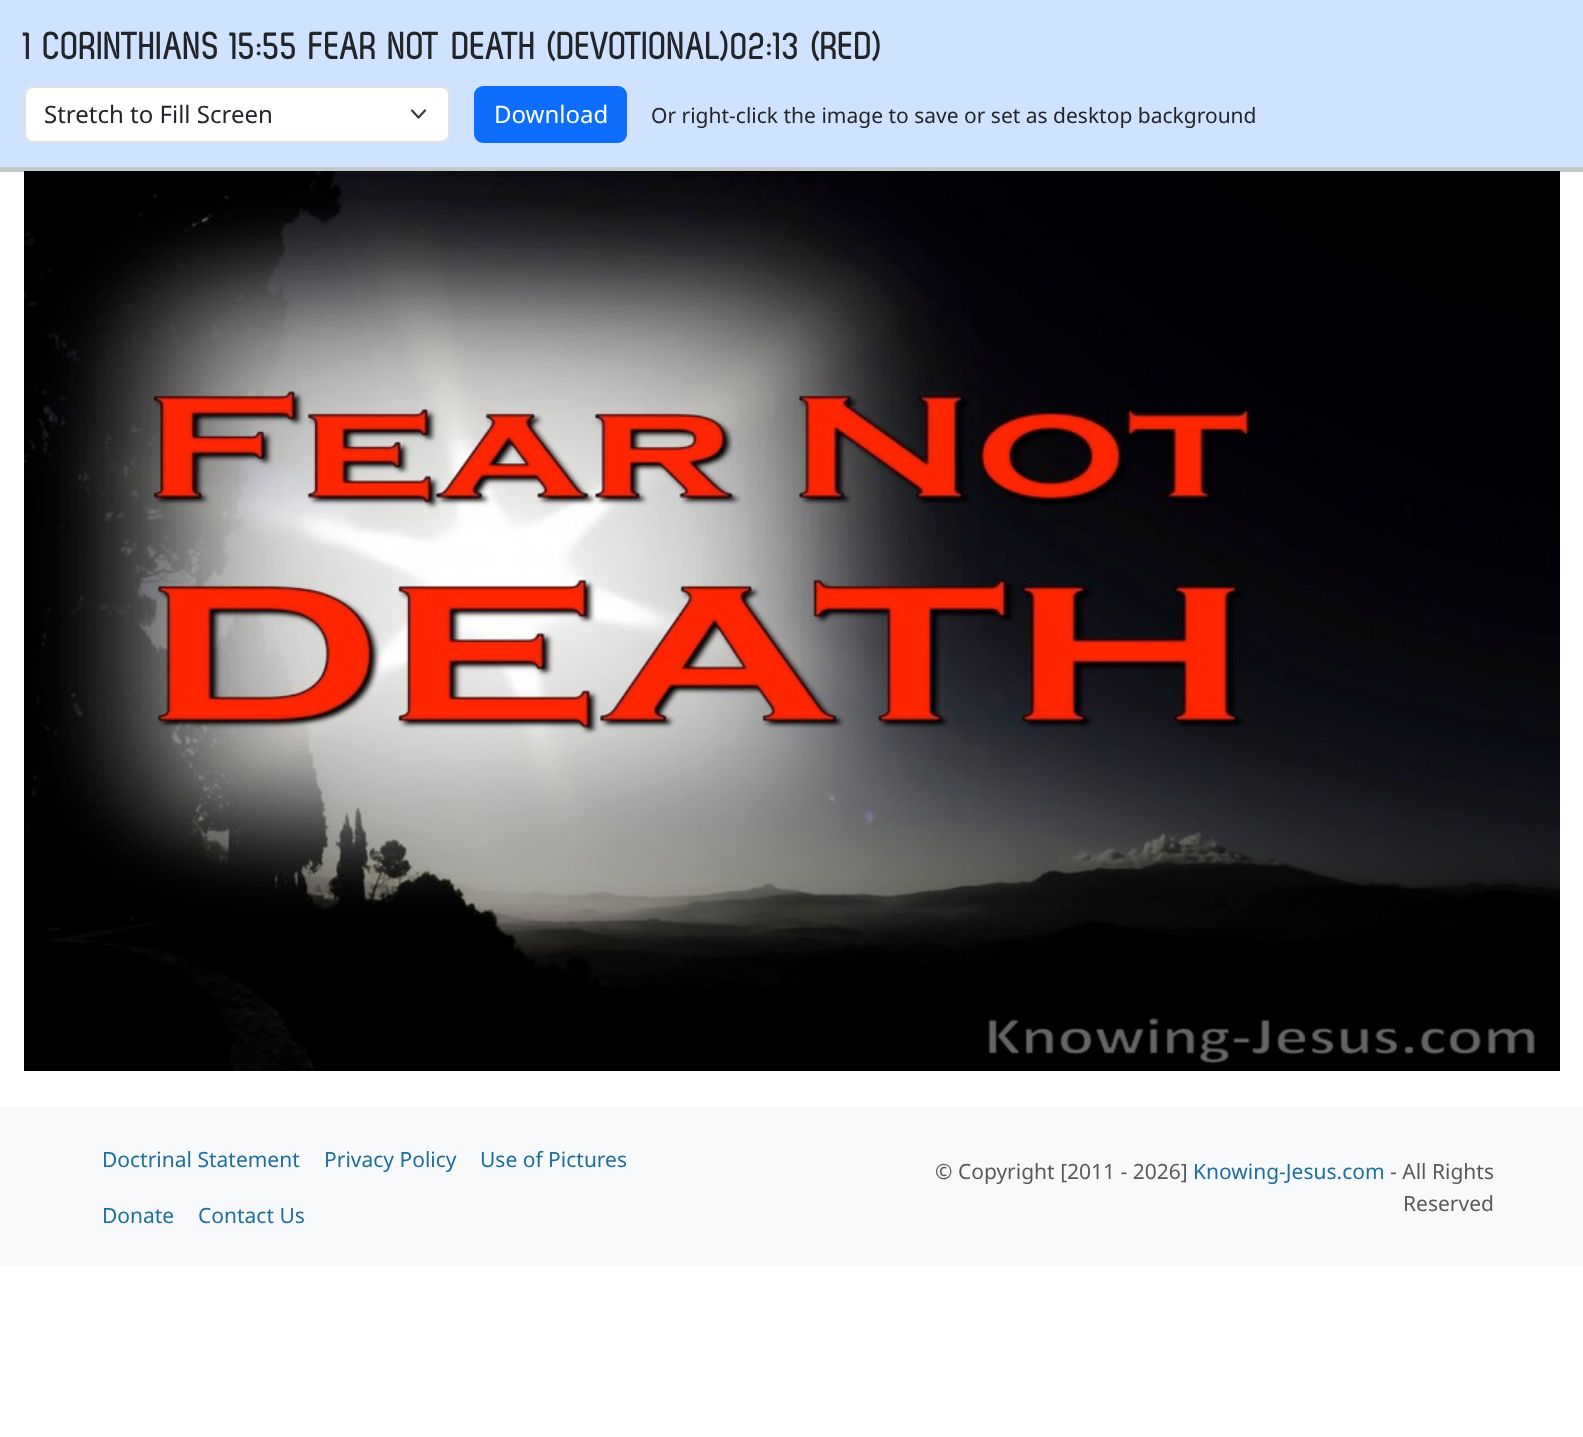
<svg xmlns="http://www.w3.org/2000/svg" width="1583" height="1437">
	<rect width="100%" height="100%" fill="#FFFFFF" />
	<rect x="0" y="0" width="1583" height="167" fill="#CFE2FF" />
	<rect x="0" y="167" width="1583" height="5" fill="#C4C8CB" />
	<text x="24" y="59" font-family="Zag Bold" font-size="39" font-weight="700" fill="#212529">1 CORINTHIANS 15:55 FEAR NOT DEATH (DEVOTIONAL)02:13 (RED)</text>
	<rect x="24" y="86" width="426" height="57" rx="9" fill="#FFFFFF" />
	<path d="M412 110.5L418.5 117.5L425 110.5" fill="none" stroke="#343A40" stroke-width="2.2" stroke-linecap="round" stroke-linejoin="round" />
	<rect x="25" y="87" width="424" height="55" rx="8" fill="none" stroke="#DEE2E6" stroke-width="2" />
	<text x="44" y="123" font-family="Noto Sans" font-size="24" fill="#212529">Stretch to Fill Screen</text>
	<rect x="475" y="87" width="151" height="55" rx="8" fill="#0D6EFD" stroke="#0D6EFD" stroke-width="2" />
	<text x="494" y="123" font-family="Noto Sans" font-size="24" fill="#FFFFFF">Download</text>
	<text x="651" y="123" font-family="Noto Sans" font-size="21" fill="#212529">Or right-click the image to save or set as desktop background</text>
	<image x="24" y="171" width="1536" height="900" href="assets/img1.png" />
	<rect x="0" y="1107" width="1583" height="159" fill="#F8F9FA" />
	<g font-family="Noto Sans" font-size="21" fill="#1C6EA0">
		<text x="102" y="1167">Doctrinal Statement</text>
		<text x="324" y="1167">Privacy Policy</text>
		<text x="480" y="1167">Use of Pictures</text>
		<text x="102" y="1223">Donate</text>
		<text x="198" y="1223">Contact Us</text>
	</g>
	<text x="935" y="1179" font-family="Noto Sans" font-size="21" fill="#575A5D">© Copyright [2011 - 2026]</text>
	<text x="1193" y="1179" font-family="Noto Sans" font-size="21" fill="#1C6EA0">Knowing-Jesus.com</text>
	<g font-family="Noto Sans" font-size="21" fill="#575A5D">
		<text x="1390" y="1179">- All Rights</text>
		<text x="1403" y="1211">Reserved</text>
	</g>
</svg>
